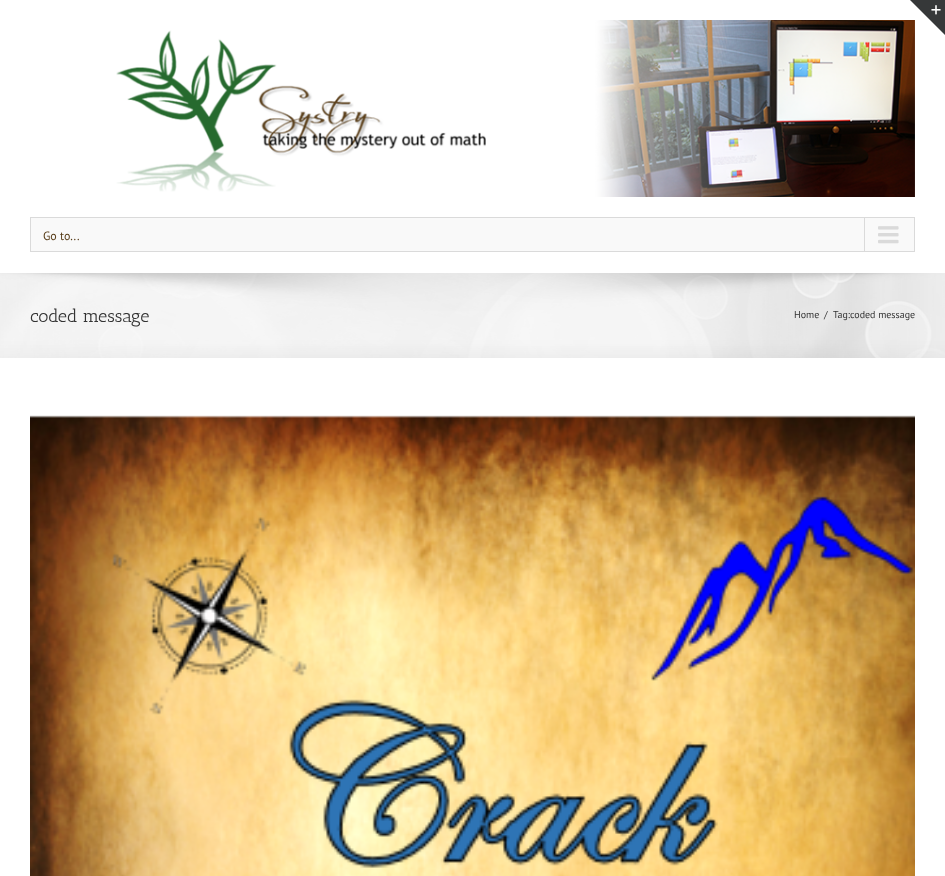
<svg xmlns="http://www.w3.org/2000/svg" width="945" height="876">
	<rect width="100%" height="100%" fill="#FFFFFF" />
	<image x="116" y="20" width="799" height="177" href="assets/img2.png" />
	<path d="M910 0H945V35Z" fill="#363839" />
	<image x="931" y="5" width="10" height="10" href="assets/img1.png" />
	<rect x="30.5" y="217.5" width="884" height="34" fill="#F9F9F9" stroke="#DADADA" />
	<text x="43" y="240" font-family="PT Sans" font-size="12" fill="#593E1A">Go to...</text>
	<rect x="864" y="218" width="1" height="33" fill="#DADADA" />
	<image x="878" y="226" width="21" height="18" href="assets/img3.png" />
	<rect x="0" y="273" width="945" height="85" fill="#F6F6F6" />
	<image x="0" y="273" width="945" height="85" href="assets/img4.png" />
	<text x="30" y="322" font-family="Antic Slab" font-size="18" fill="#333333">coded message</text>
	<g font-family="PT Sans" font-size="10" fill="#333333">
		<text x="794" y="318">Home</text>
		<text x="824" y="318">/</text>
		<text x="833" y="318">Tag:coded message</text>
	</g>
	<image x="30" y="415" width="885" height="461" href="assets/img5.png" />
</svg>
